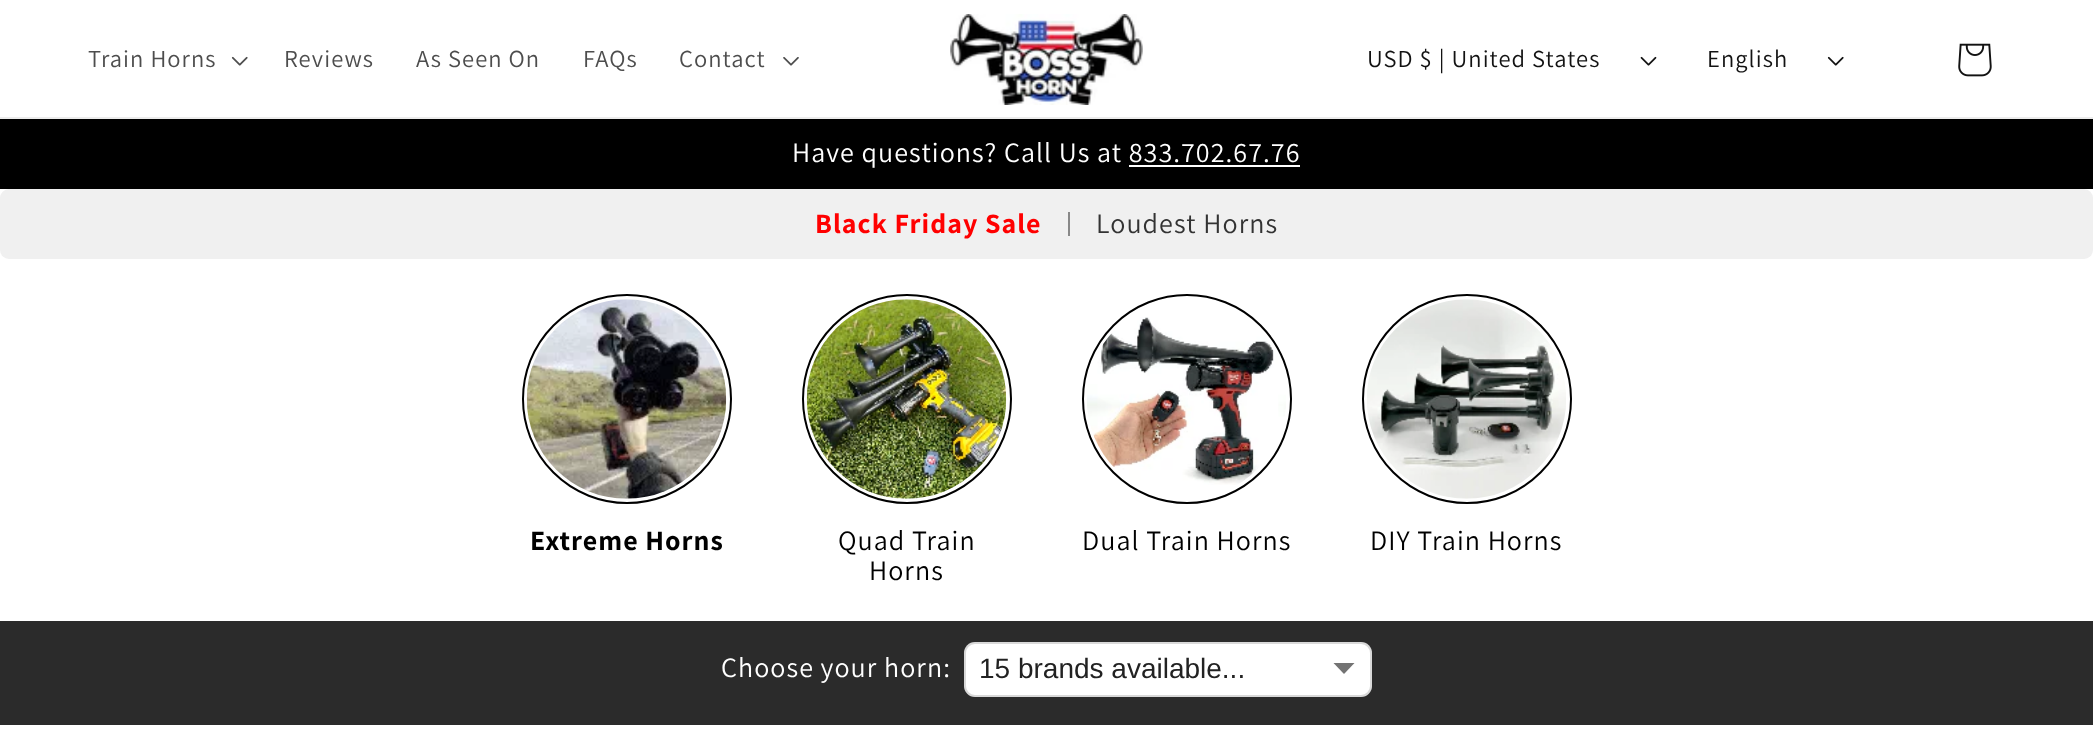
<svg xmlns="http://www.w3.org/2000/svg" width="2093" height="738">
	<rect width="100%" height="100%" fill="#FFFFFF" />
	<rect x="0" y="117" width="2093" height="2" fill="#ECECEC" />
	<text x="88" y="67" font-family="Assistant" font-size="24.5" letter-spacing="1.05" fill="#4D4D4D">Train Horns</text>
	<image x="231" y="56" width="17" height="10" href="assets/img1.png" />
	<g font-family="Assistant" font-size="24.5" letter-spacing="1.05" fill="#4D4D4D">
		<text x="284" y="67">Reviews</text>
		<text x="416" y="67">As Seen On</text>
		<text x="583" y="67">FAQs</text>
		<text x="679" y="67">Contact</text>
	</g>
	<image x="783" y="57" width="16" height="9" href="assets/img2.png" />
	<image x="950" y="14" width="193" height="91" href="assets/img3.png" />
	<text x="1367" y="67" font-family="Assistant" font-size="24.5" letter-spacing="1.05" fill="#121212">USD $ | United States</text>
	<image x="1640" y="56" width="17" height="10" href="assets/img4.png" />
	<text x="1707" y="67" font-family="Assistant" font-size="24.5" letter-spacing="1.05" fill="#121212">English</text>
	<image x="1827" y="56" width="17" height="10" href="assets/img5.png" />
	<image x="1958" y="43" width="34" height="34" href="assets/img6.png" />
	<rect x="0" y="119" width="2093" height="70" fill="#000000" />
	<text x="792" y="162" font-family="Assistant" font-size="28" letter-spacing="1.05" fill="#FFFFFF">Have questions? Call Us at 833.702.67.76</text>
	<rect x="1129" y="165" width="171" height="2" fill="#FFFFFF" />
	<rect x="0" y="189" width="2093" height="70" rx="9" fill="#F0F0F0" />
	<text x="815" y="233" font-family="Assistant" font-size="28" font-weight="700" letter-spacing="1.05" fill="#FF0000">Black Friday Sale</text>
	<rect x="1068" y="212" width="2" height="24" fill="#888888" />
	<text x="1096" y="233" font-family="Assistant" font-size="28" letter-spacing="1.05" fill="#333333">Loudest Horns</text>
	<circle cx="627" cy="399" r="104" fill="none" stroke="#000000" stroke-width="2" />
	<image x="526" y="299" width="201" height="200" href="assets/img7.png" />
	<text x="530" y="550" font-family="Assistant" font-size="28" font-weight="700" letter-spacing="1.05" fill="#000000">Extreme Horns</text>
	<circle cx="907" cy="399" r="104" fill="none" stroke="#000000" stroke-width="2" />
	<image x="806" y="299" width="201" height="200" href="assets/img8.png" />
	<g font-family="Assistant" font-size="28" letter-spacing="1.05" fill="#000000">
		<text x="838" y="550">Quad Train</text>
		<text x="869" y="580">Horns</text>
	</g>
	<circle cx="1187" cy="399" r="104" fill="none" stroke="#000000" stroke-width="2" />
	<image x="1087" y="317" width="199" height="168" href="assets/img9.png" />
	<text x="1082" y="550" font-family="Assistant" font-size="28" letter-spacing="1.05" fill="#000000">Dual Train Horns</text>
	<circle cx="1467" cy="399" r="104" fill="none" stroke="#000000" stroke-width="2" />
	<image x="1367" y="299" width="199" height="200" href="assets/img10.png" />
	<text x="1370" y="550" font-family="Assistant" font-size="28" letter-spacing="1.05" fill="#000000">DIY Train Horns</text>
	<rect x="0" y="621" width="2093" height="104" fill="#2B2B2B" />
	<text x="721" y="677" font-family="Assistant" font-size="28" letter-spacing="1.05" fill="#FFFFFF">Choose your horn:</text>
	<rect x="964" y="642" width="408" height="55" rx="11" fill="#FFFFFF" />
	<rect x="965" y="643" width="406" height="53" rx="10" fill="none" stroke="#000000" stroke-opacity="0.15" stroke-width="2" />
	<text x="979" y="678" font-family="Liberation Sans" font-size="28" fill="#222222">15 brands available...</text>
	<path d="M1333.5 663H1354.5L1344 674Z" fill="#737373" />
</svg>
